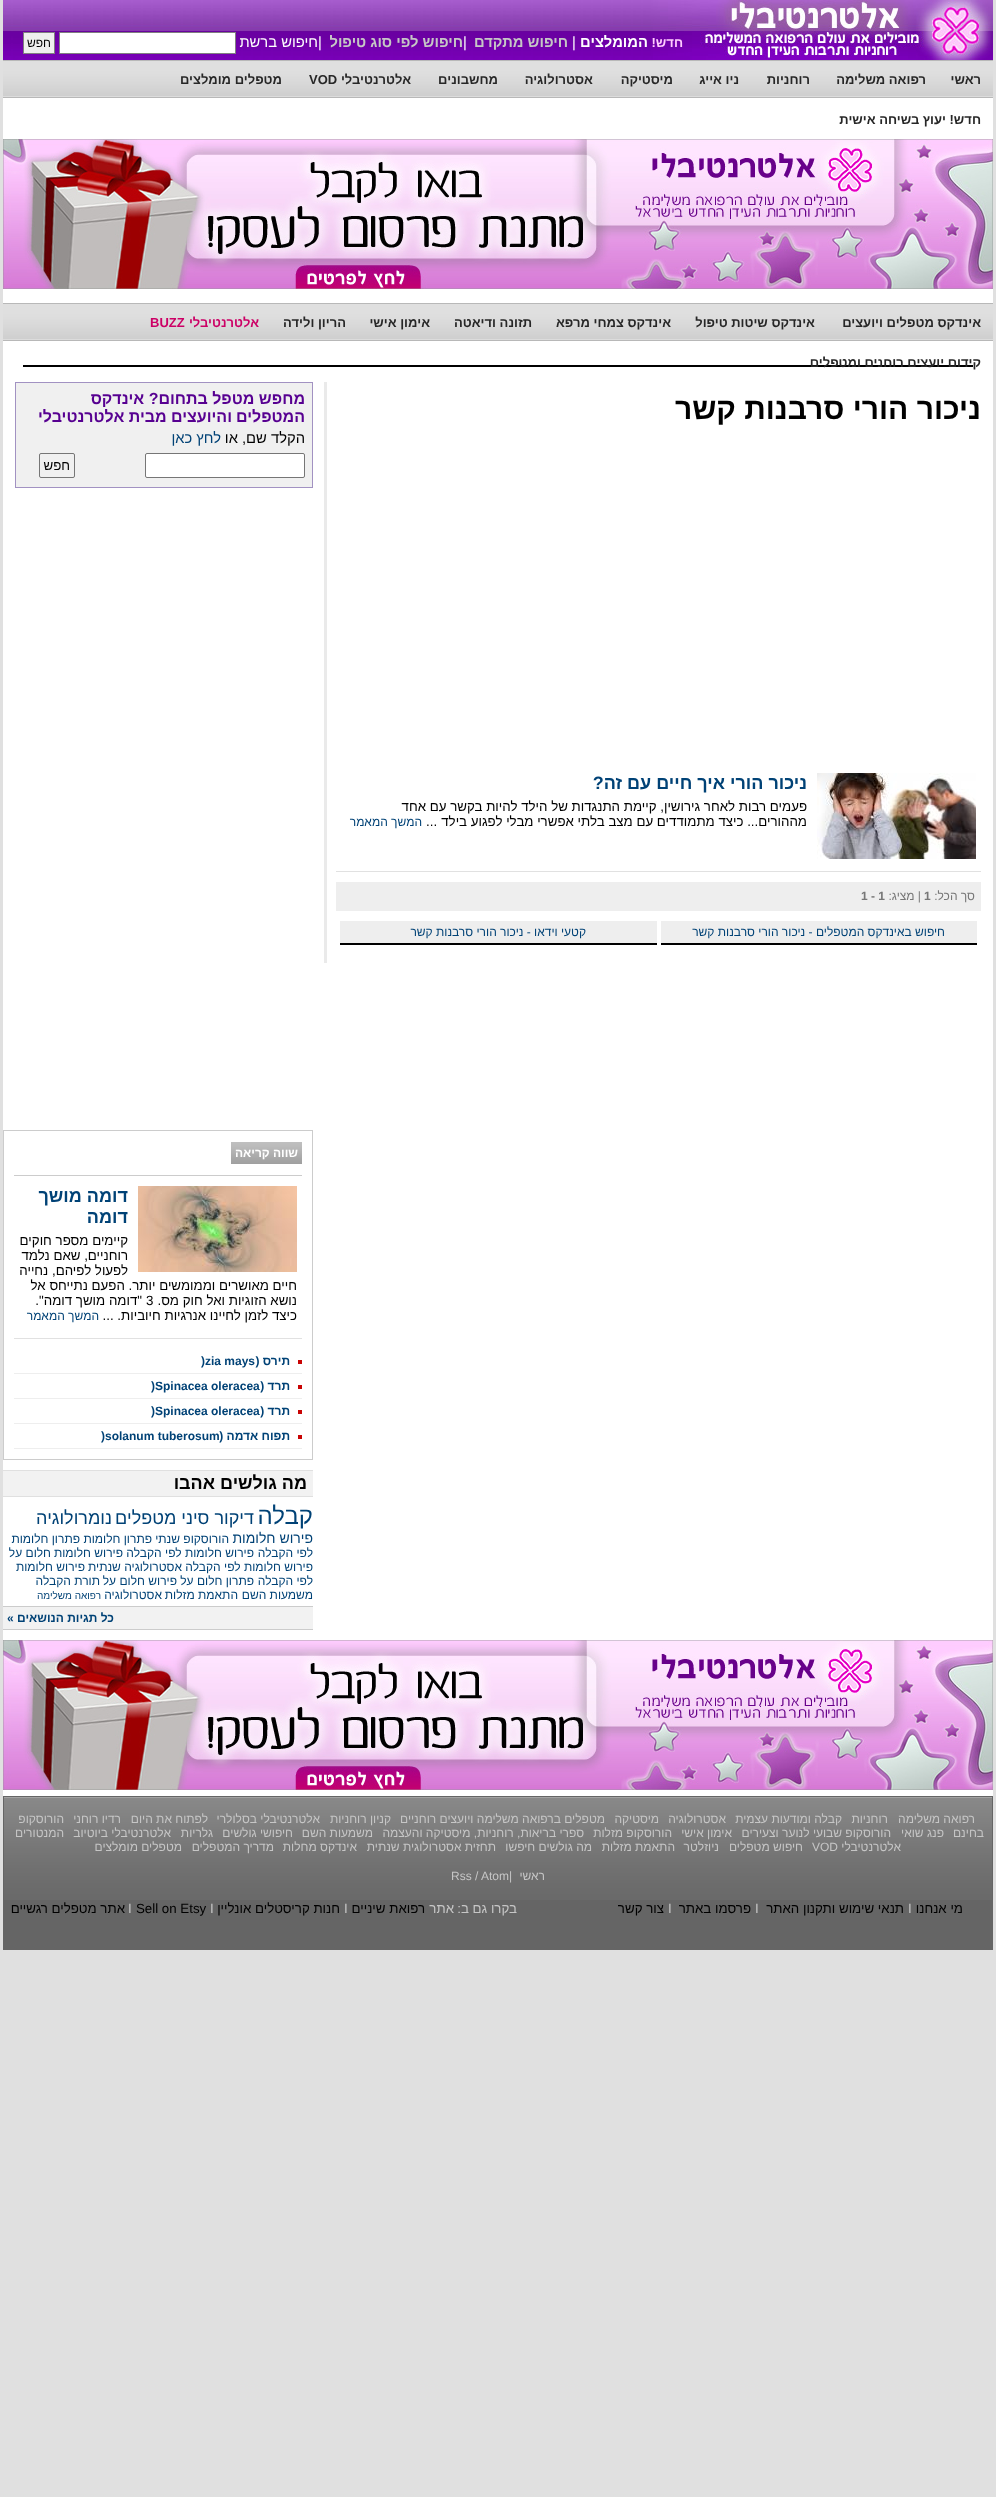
<svg xmlns="http://www.w3.org/2000/svg" width="996" height="2497">
	<rect width="100%" height="100%" fill="#E0E0E0" />
	<rect x="3" y="98" width="990" height="1698" fill="#FFFFFF" />
	<image x="3" y="0" width="650" height="60" href="assets/img1.png" />
	<image x="653" y="0" width="340" height="60" href="assets/img2.png" />
	<text x="683" y="47" font-family="Liberation Sans" font-size="13" font-weight="700" direction="rtl" fill="#FFCCFF">חדש!</text>
	<text x="648" y="47" font-family="Liberation Sans" font-size="14.75" font-weight="700" direction="rtl" fill="#FFFFFF">המומלצים</text>
	<text x="572" y="47" font-family="Liberation Sans" font-size="14.75" fill="#FFFFFF">|</text>
	<text x="568" y="47" font-family="Liberation Sans" font-size="14.75" font-weight="700" direction="rtl" fill="#C6C6C6">חיפוש מתקדם</text>
	<text x="463" y="47" font-family="Liberation Sans" font-size="14.75" fill="#FFFFFF">|</text>
	<text x="463" y="47" font-family="Liberation Sans" font-size="14.75" font-weight="700" direction="rtl" fill="#C6C6C6">חיפוש לפי סוג טיפול</text>
	<text x="318" y="47" font-family="Liberation Sans" font-size="14.75" fill="#FFFFFF">|</text>
	<text x="318" y="47" font-family="Liberation Sans" font-size="14.75" direction="rtl" fill="#FFFFFF">חיפוש ברשת</text>
	<rect x="59.5" y="32.5" width="176" height="21" fill="#FFFFFF" stroke="#808080" />
	<rect x="23.5" y="32.5" width="31" height="21" fill="#EFEFEF" stroke="#808080" />
	<text x="51" y="47" font-family="Liberation Sans" font-size="12" direction="rtl" fill="#000000">חפש</text>
	<image x="3" y="60" width="990" height="38" href="assets/img3.png" />
	<g font-family="Liberation Sans" font-size="13" font-weight="700" direction="rtl" fill="#272727">
		<text x="981" y="84">ראשי</text>
		<text x="926" y="84">רפואה משלימה</text>
		<text x="810" y="84">רוחניות</text>
		<text x="739" y="84">ניו אייג</text>
		<text x="673" y="84">מיסטיקה</text>
		<text x="593" y="84">אסטרולוגיה</text>
		<text x="498" y="84">מחשבונים</text>
		<text x="411" y="84">אלטרנטיבלי</text>
	</g>
	<text x="309" y="84" font-family="Liberation Sans" font-size="13" font-weight="700" fill="#272727">VOD</text>
	<g font-family="Liberation Sans" font-size="13" font-weight="700" direction="rtl" fill="#272727">
		<text x="282" y="84">מטפלים מומלצים</text>
		<text x="981" y="124">חדש! יעוץ בשיחה אישית</text>
	</g>
	<image x="3" y="139" width="990" height="150" href="assets/img4.png" />
	<image x="3" y="303" width="990" height="38" href="assets/img3.png" />
	<g font-family="Liberation Sans" font-size="13" font-weight="700" direction="rtl" fill="#272727">
		<text x="981" y="327">אינדקס מטפלים ויועצים</text>
		<text x="815" y="327">אינדקס שיטות טיפול</text>
		<text x="671" y="327">אינדקס צמחי מרפא</text>
		<text x="532" y="327">תזונה ודיאטה</text>
		<text x="430" y="327">אימון אישי</text>
		<text x="346" y="327">הריון ולידה</text>
	</g>
	<text x="259" y="327" font-family="Liberation Sans" font-size="13" font-weight="700" direction="rtl" fill="#CC0066">אלטרנטיבלי</text>
	<text x="150" y="327" font-family="Liberation Sans" font-size="13" font-weight="700" fill="#CC0066">BUZZ</text>
	<rect x="23" y="365" width="950" height="2" fill="#000000" />
	<text x="981" y="367" font-family="Liberation Sans" font-size="13" font-weight="700" direction="rtl" fill="#272727">קידום יועצים רוחנים ומטפלים</text>
	<rect x="324" y="382" width="3" height="581" fill="#EAEAEA" />
	<text x="981" y="419" font-family="Liberation Sans" font-size="30" font-weight="700" direction="rtl" fill="#000000">ניכור הורי סרבנות קשר</text>
	<rect x="336" y="871" width="645" height="1" fill="#E1E1E1" />
	<image x="817" y="773" width="159" height="86" href="assets/img5.png" />
	<text x="807" y="789" font-family="Liberation Sans" font-size="18" font-weight="700" direction="rtl" fill="#004276">ניכור הורי איך חיים עם זה?</text>
	<g font-family="Liberation Sans" font-size="13.3" direction="rtl" fill="#000000">
		<text x="807" y="811">פעמים רבות לאחר גירושין, קיימת התנגדות של הילד להיות בקשר עם אחד</text>
		<text x="807" y="826">מההורים... כיצד מתמודדים עם מצב בלתי אפשרי מבלי לפגוע בילד</text>
	</g>
	<text x="426" y="826" font-family="Liberation Sans" font-size="13.3" fill="#000000">...</text>
	<text x="422" y="826" font-family="Liberation Sans" font-size="12" direction="rtl" fill="#004276">המשך המאמר</text>
	<rect x="336" y="882" width="645" height="29" fill="#EEEEEE" />
	<text x="975" y="900" font-family="Liberation Sans" font-size="12" direction="rtl" fill="#777777">סך הכל:</text>
	<text x="924" y="900" font-family="Liberation Sans" font-size="12" font-weight="700" fill="#777777">1</text>
	<text x="921" y="900" font-family="Liberation Sans" font-size="12" direction="rtl" fill="#777777">| מציג:</text>
	<text x="861" y="900" font-family="Liberation Sans" font-size="12" font-weight="700" fill="#777777">1 - 1</text>
	<rect x="661" y="921" width="316" height="22" fill="#EEEEEE" />
	<rect x="661" y="943" width="316" height="2" fill="#000000" />
	<text x="945" y="936" font-family="Liberation Sans" font-size="12" direction="rtl" fill="#004276">חיפוש באינדקס המטפלים - ניכור הורי סרבנות קשר</text>
	<rect x="340" y="921" width="317" height="22" fill="#EEEEEE" />
	<rect x="340" y="943" width="317" height="2" fill="#000000" />
	<text x="586" y="936" font-family="Liberation Sans" font-size="12" direction="rtl" fill="#004276">קטעי וידאו - ניכור הורי סרבנות קשר</text>
	<rect x="16" y="383" width="296" height="104" fill="#F0F0F0" />
	<rect x="15" y="382" width="298" height="1" fill="#A292C2" />
	<rect x="312" y="382" width="1" height="106" fill="#A292C2" />
	<rect x="15" y="487" width="298" height="1" fill="#A292C2" />
	<rect x="15" y="382" width="1" height="106" fill="#A292C2" />
	<g font-family="Liberation Sans" font-size="16" font-weight="700" direction="rtl" fill="#570091">
		<text x="305" y="404">מחפש מטפל בתחום? אינדקס</text>
		<text x="305" y="422">המטפלים</text>
		<text x="232" y="422">והיועצים מבית אלטרנטיבלי</text>
	</g>
	<text x="305" y="443" font-family="Liberation Sans" font-size="14.75" direction="rtl" fill="#000000">הקלד שם, או</text>
	<text x="221" y="443" font-family="Liberation Sans" font-size="14.75" direction="rtl" fill="#004276">לחץ כאן</text>
	<rect x="145.5" y="453.5" width="159" height="24" rx="1.5" fill="#FFFFFF" stroke="#767676" />
	<rect x="39.5" y="453.5" width="35" height="24" rx="1.5" fill="none" stroke="#767676" />
	<text x="70" y="470" font-family="Liberation Sans" font-size="13.3" direction="rtl" fill="#000000">חפש</text>
	<rect x="3.5" y="1130.5" width="309" height="329" fill="none" stroke="#CCCCCC" />
	<rect x="14" y="1175" width="288" height="1" fill="#CCCCCC" />
	<image x="231" y="1142" width="71" height="22" href="assets/img6.png" />
	<text x="298" y="1157" font-family="Liberation Sans" font-size="12" font-weight="700" direction="rtl" fill="#FFFFFF">שווה קריאה</text>
	<rect x="14" y="1338" width="288" height="1" fill="#E1E1E1" />
	<image x="138" y="1186" width="159" height="86" href="assets/img7.png" />
	<g font-family="Liberation Sans" font-size="18" font-weight="700" direction="rtl" fill="#004276">
		<text x="128" y="1202">דומה מושך</text>
		<text x="128" y="1223">דומה</text>
	</g>
	<g font-family="Liberation Sans" font-size="13.3" direction="rtl" fill="#000000">
		<text x="128" y="1245">קיימים מספר חוקים</text>
		<text x="128" y="1260">רוחניים, שאם נלמד</text>
		<text x="128" y="1275">לפעול לפיהם, נחייה</text>
		<text x="297" y="1290">חיים מאושרים וממומשים יותר. הפעם נתייחס אל</text>
		<text x="297" y="1305">נושא הזוגיות ואל חוק מס.</text>
	</g>
	<text x="146" y="1305" font-family="Liberation Sans" font-size="13.3" fill="#000000">3</text>
	<g font-family="Liberation Sans" font-size="13.3" direction="rtl" fill="#000000">
		<text x="142" y="1305">"דומה מושך דומה".</text>
		<text x="297" y="1320">כיצד לזמן לחיינו אנרגיות חיוביות. ...</text>
	</g>
	<text x="99" y="1320" font-family="Liberation Sans" font-size="12" direction="rtl" fill="#004276">המשך המאמר</text>
	<rect x="14" y="1373" width="288" height="1" fill="#EEEEEE" />
	<rect x="298" y="1360" width="4" height="4" fill="#C90404" />
	<text x="290" y="1365" font-family="Liberation Sans" font-size="12" font-weight="700" direction="rtl" fill="#004276">תירס (</text>
	<text x="201" y="1365" font-family="Liberation Sans" font-size="12" font-weight="700" fill="#004276">)zia mays</text>
	<rect x="14" y="1398" width="288" height="1" fill="#EEEEEE" />
	<rect x="298" y="1385" width="4" height="4" fill="#C90404" />
	<text x="151" y="1390" font-family="Liberation Sans" font-size="12" font-weight="700" fill="#004276">)Spinacea oleracea</text>
	<text x="290" y="1390" font-family="Liberation Sans" font-size="12" font-weight="700" direction="rtl" fill="#004276">תרד (</text>
	<rect x="14" y="1423" width="288" height="1" fill="#EEEEEE" />
	<rect x="298" y="1410" width="4" height="4" fill="#C90404" />
	<text x="151" y="1415" font-family="Liberation Sans" font-size="12" font-weight="700" fill="#004276">)Spinacea oleracea</text>
	<text x="290" y="1415" font-family="Liberation Sans" font-size="12" font-weight="700" direction="rtl" fill="#004276">תרד (</text>
	<rect x="14" y="1448" width="288" height="1" fill="#EEEEEE" />
	<rect x="298" y="1435" width="4" height="4" fill="#C90404" />
	<text x="290" y="1440" font-family="Liberation Sans" font-size="12" font-weight="700" direction="rtl" fill="#004276">תפוח אדמה (</text>
	<text x="101" y="1440" font-family="Liberation Sans" font-size="12" font-weight="700" fill="#004276">)solanum tuberosum</text>
	<rect x="3" y="1629" width="310" height="1" fill="#CCCCCC" />
	<rect x="3" y="1471" width="310" height="25" fill="#F2F2F2" />
	<rect x="3" y="1470" width="310" height="1" fill="#E0E0E0" />
	<rect x="3" y="1496" width="310" height="1" fill="#E0E0E0" />
	<text x="307" y="1489" font-family="Liberation Sans" font-size="18" font-weight="700" direction="rtl" fill="#000000">מה גולשים אהבו</text>
	<text x="313" y="1524" font-family="Liberation Sans" font-size="24" direction="rtl" fill="#004276">קבלה</text>
	<g font-family="Liberation Sans" font-size="18" direction="rtl" fill="#004276">
		<text x="254" y="1524">דיקור סיני מטפלים</text>
		<text x="112" y="1524">נומרולוגיה</text>
	</g>
	<text x="313" y="1543" font-family="Liberation Sans" font-size="14" direction="rtl" fill="#004276">פירוש חלומות</text>
	<g font-family="Liberation Sans" font-size="12" direction="rtl" fill="#004276">
		<text x="229" y="1543">הורוסקופ שנתי</text>
		<text x="152" y="1543">פתרון חלומות</text>
		<text x="80" y="1543">פתרון חלומות</text>
		<text x="313" y="1557">לפי הקבלה</text>
		<text x="254" y="1557">פירוש חלומות לפי הקבלה</text>
		<text x="123" y="1557">פירוש חלומות</text>
		<text x="51" y="1557">חלום על</text>
		<text x="313" y="1571">פירוש חלומות לפי הקבלה</text>
		<text x="182" y="1571">אסטרולוגיה שנתית</text>
		<text x="85" y="1571">פירוש חלומות</text>
		<text x="313" y="1585">לפי הקבלה</text>
		<text x="254" y="1585">פתרון חלום על</text>
		<text x="177" y="1585">פירוש חלום על</text>
		<text x="100" y="1585">תורת הקבלה</text>
		<text x="313" y="1599">משמעות השם</text>
		<text x="238" y="1599">התאמת מזלות</text>
		<text x="162" y="1599">אסטרולוגיה</text>
	</g>
	<text x="101" y="1599" font-family="Liberation Sans" font-size="10" direction="rtl" fill="#004276">רפואה משלימה</text>
	<rect x="3" y="1607" width="310" height="22" fill="#F2F2F2" />
	<rect x="3" y="1606" width="310" height="1" fill="#CCCCCC" />
	<text x="114" y="1622" font-family="Liberation Sans" font-size="12" font-weight="700" direction="rtl" fill="#004276">כל תגיות הנושאים »</text>
	<image x="3" y="1640" width="990" height="150" href="assets/img4.png" />
	<rect x="4" y="1900" width="988" height="49" fill="#656565" />
	<image x="4" y="1797" width="988" height="103" href="assets/img8.png" />
	<rect x="3.5" y="1796.5" width="989" height="153" fill="none" stroke="#656565" />
	<g font-family="Liberation Sans" font-size="12" direction="rtl" fill="#C6C6C6">
		<text x="975" y="1823">רפואה משלימה</text>
		<text x="888" y="1823">רוחניות</text>
		<text x="842" y="1823">קבלה ומודעות עצמית</text>
		<text x="726" y="1823">אסטרולוגיה</text>
		<text x="659" y="1823">מיסטיקה</text>
		<text x="605" y="1823">מטפלים ברפואה משלימה ויועצים רוחניים</text>
		<text x="391" y="1823">קניון רוחניות</text>
		<text x="320" y="1823">אלטרנטיבלי בסלולרי</text>
		<text x="208" y="1823">לפתוח את היום</text>
		<text x="121" y="1823">רדיו רוחני</text>
		<text x="64" y="1823">הורוסקופ</text>
		<text x="984" y="1837">בחינם</text>
		<text x="944" y="1837">פנג שואי</text>
		<text x="891" y="1837">הורוסקופ שבועי לנוער וצעירים</text>
		<text x="732" y="1837">אימון אישי</text>
		<text x="672" y="1837">הורוסקופ מזלות</text>
		<text x="584" y="1837">ספרי בריאות, רוחניות, מיסטיקה והעצמה</text>
		<text x="373" y="1837">משמעות השם</text>
		<text x="293" y="1837">חיפושי גולשים</text>
		<text x="213" y="1837">גלריות</text>
		<text x="171" y="1837">אלטרנטיבלי ביוטיוב</text>
		<text x="64" y="1837">המנטורים</text>
		<text x="901" y="1851">אלטרנטיבלי</text>
	</g>
	<text x="812" y="1851" font-family="Liberation Sans" font-size="12" fill="#C6C6C6">VOD</text>
	<g font-family="Liberation Sans" font-size="12" direction="rtl" fill="#C6C6C6">
		<text x="803" y="1851">חיפוש מטפלים</text>
		<text x="719" y="1851">ניוזלטר</text>
		<text x="675" y="1851">התאמת מזלות</text>
		<text x="592" y="1851">מה גולשים חיפשו</text>
		<text x="496" y="1851">תחזית אסטרולוגית שנתית</text>
		<text x="357" y="1851">אינדקס מחלות</text>
		<text x="274" y="1851">מדריך המטפלים</text>
		<text x="182" y="1851">מטפלים מומלצים</text>
		<text x="545" y="1880">ראשי</text>
	</g>
	<g font-family="Liberation Sans" font-size="12" fill="#C6C6C6">
		<text x="509" y="1880">|</text>
		<text x="481" y="1880">Atom</text>
		<text x="475" y="1880">/</text>
		<text x="451" y="1880">Rss</text>
	</g>
	<text x="963" y="1913" font-family="Liberation Sans" font-size="13.3" direction="rtl" fill="#000000">מי אנחנו</text>
	<text x="908" y="1913" font-family="Liberation Sans" font-size="13.3" fill="#C6C6C6">I</text>
	<text x="904" y="1913" font-family="Liberation Sans" font-size="13.3" direction="rtl" fill="#000000">תנאי שימוש ותקנון האתר</text>
	<text x="755" y="1913" font-family="Liberation Sans" font-size="13.3" fill="#C6C6C6">I</text>
	<text x="751" y="1913" font-family="Liberation Sans" font-size="13.3" direction="rtl" fill="#000000">פרסמו באתר</text>
	<text x="668" y="1913" font-family="Liberation Sans" font-size="13.3" fill="#C6C6C6">I</text>
	<text x="664" y="1913" font-family="Liberation Sans" font-size="13.3" direction="rtl" fill="#000000">צור קשר</text>
	<g font-family="Liberation Sans" font-size="13.3" direction="rtl" fill="#C6C6C6">
		<text x="517" y="1913">בקרו גם ב:</text>
		<text x="454" y="1913">אתר</text>
	</g>
	<text x="425" y="1913" font-family="Liberation Sans" font-size="13.3" direction="rtl" fill="#000000">רפואת שיניים</text>
	<text x="344" y="1913" font-family="Liberation Sans" font-size="13.3" fill="#C6C6C6">I</text>
	<text x="340" y="1913" font-family="Liberation Sans" font-size="13.3" direction="rtl" fill="#000000">חנות קריסטלים אונליין</text>
	<text x="210" y="1913" font-family="Liberation Sans" font-size="13.3" fill="#C6C6C6">I</text>
	<text x="136" y="1913" font-family="Liberation Sans" font-size="13.3" fill="#000000">Sell on Etsy</text>
	<text x="128" y="1913" font-family="Liberation Sans" font-size="13.3" fill="#C6C6C6">I</text>
	<text x="125" y="1913" font-family="Liberation Sans" font-size="13.3" direction="rtl" fill="#000000">אתר מטפלים רגשיים</text>
</svg>
